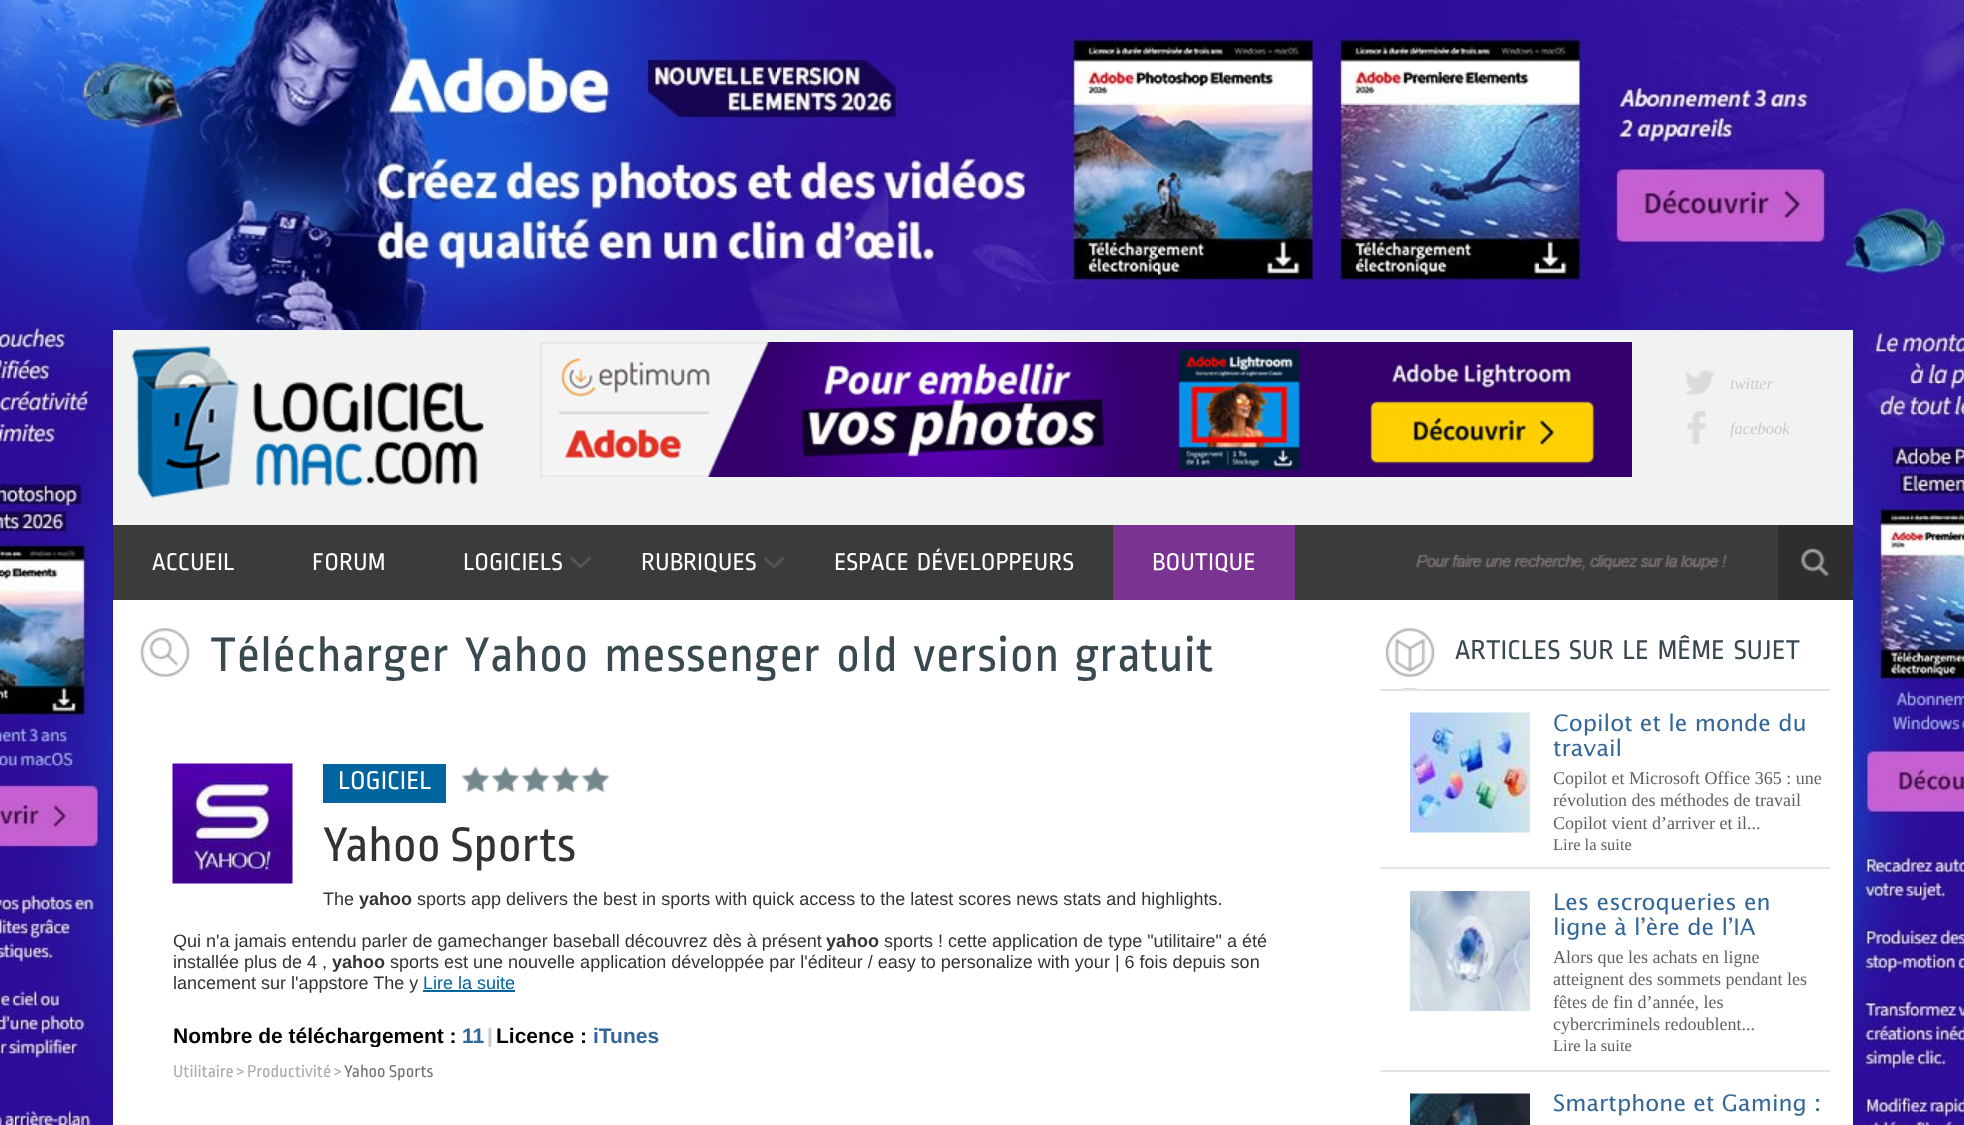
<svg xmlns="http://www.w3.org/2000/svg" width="1964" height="1125">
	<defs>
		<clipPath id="clip1"><rect x="173" y="1023" width="1140" height="24" /></clipPath>
		<clipPath id="clip2"><rect x="1553" y="1094" width="270" height="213" /></clipPath>
	</defs>
	<rect width="100%" height="100%" fill="#FFFFFF" />
	<image x="0" y="0" width="1964" height="1125" href="assets/img1.png" />
	<rect x="113" y="330" width="1740" height="195" fill="#F1F2F2" />
	<image x="131" y="346" width="353" height="153" href="assets/img2.png" />
	<image x="540" y="342" width="1092" height="135" href="assets/img3.png" />
	<image x="1685" y="370" width="30" height="25" href="assets/img4.png" />
	<text x="1730" y="389" font-family="Liberation Serif" font-size="16.5" font-style="italic" fill="#C9C9C9">twitter</text>
	<image x="1687" y="411" width="19" height="34" href="assets/img5.png" />
	<text x="1730" y="434" font-family="Liberation Serif" font-size="16.5" font-style="italic" fill="#C9C9C9">facebook</text>
	<rect x="113" y="525" width="1665" height="75" fill="#3B3B3B" />
	<image x="1415" y="554" width="312" height="17" href="assets/img6.png" />
	<rect x="1778" y="525" width="75" height="75" fill="#2E2E2E" />
	<image x="1800" y="548" width="53" height="46" href="assets/img7.png" />
	<g font-family="'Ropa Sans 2'" font-size="25.5" fill="#FFFFFF">
		<text x="152" y="570">ACCUEIL</text>
		<text x="312" y="570">FORUM</text>
		<text x="463" y="570">LOGICIELS</text>
	</g>
	<image x="570" y="556" width="21" height="13" href="assets/img8.png" />
	<text x="641" y="570" font-family="'Ropa Sans 2'" font-size="25.5" fill="#FFFFFF">RUBRIQUES</text>
	<image x="763" y="556" width="22" height="13" href="assets/img9.png" />
	<text x="834" y="570" font-family="'Ropa Sans 2'" font-size="25.5" fill="#FFFFFF">ESPACE DÉVELOPPEURS</text>
	<rect x="1113" y="525" width="182" height="75" fill="#7B3392" />
	<text x="1152" y="570" font-family="'Ropa Sans 2'" font-size="25.5" fill="#FFFFFF">BOUTIQUE</text>
	<rect x="113" y="600" width="1740" height="525" fill="#FFFFFF" />
	<image x="140" y="628" width="50" height="49" href="assets/img10.png" />
	<text x="210" y="671" font-family="'Ropa Sans 2'" font-size="51" fill="#38494F">Télécharger Yahoo messenger old version gratuit</text>
	<image x="172" y="763" width="121" height="121" href="assets/img11.png" />
	<rect x="323" y="764" width="123" height="39" fill="#00659E" />
	<text x="338" y="789" font-family="'Ropa Sans 2'" font-size="27" fill="#FFFFFF">LOGICIEL</text>
	<image x="461" y="766" width="29" height="27" href="assets/img12.png" />
	<image x="491" y="766" width="29" height="27" href="assets/img12.png" />
	<image x="521" y="766" width="29" height="27" href="assets/img13.png" />
	<image x="551" y="766" width="29" height="27" href="assets/img13.png" />
	<image x="581" y="766" width="29" height="27" href="assets/img13.png" />
	<text x="323" y="861" font-family="Ropa Sans" font-size="51" fill="#333333">Yahoo Sports</text>
	<text x="323" y="905" font-family="Liberation Sans" font-size="18" fill="#333333">The</text>
	<text x="359" y="905" font-family="Liberation Sans" font-size="18" font-weight="700" fill="#333333">yahoo</text>
	<g font-family="Liberation Sans" font-size="18" fill="#333333">
		<text x="417" y="905">sports app delivers the best in sports with quick access to the latest scores news stats and highlights.</text>
		<text x="173" y="947">Qui n'a jamais entendu parler de gamechanger baseball découvrez dès à présent</text>
	</g>
	<text x="826" y="947" font-family="Liberation Sans" font-size="18" font-weight="700" fill="#333333">yahoo</text>
	<g font-family="Liberation Sans" font-size="18" fill="#333333">
		<text x="884" y="947">sports ! cette application de type "utilitaire" a été</text>
		<text x="173" y="968">installée plus de 4 ,</text>
	</g>
	<text x="332" y="968" font-family="Liberation Sans" font-size="18" font-weight="700" fill="#333333">yahoo</text>
	<g font-family="Liberation Sans" font-size="18" fill="#333333">
		<text x="390" y="968">sports est une nouvelle application développée par l'éditeur / easy to personalize with your | 6 fois depuis son</text>
		<text x="173" y="989">lancement sur l'appstore The y</text>
	</g>
	<text x="423" y="989" font-family="Liberation Sans" font-size="18" fill="#00659E">Lire la suite</text>
	<rect x="423" y="990" width="92" height="2" fill="#00659E" />
	<g clip-path="url(#clip1)">
		<text x="173" y="1043" font-family="Liberation Sans" font-size="21" font-weight="700" fill="#000000">Nombre de téléchargement :</text>
	</g>
	<text x="462" y="1043" font-family="Liberation Sans" font-size="21" font-weight="700" fill="#336699">11</text>
	<g clip-path="url(#clip1)">
		<text x="487" y="1043" font-family="Liberation Sans" font-size="21" font-weight="700" fill="#C9C9C9">|</text>
	</g>
	<text x="496" y="1043" font-family="Liberation Sans" font-size="21" font-weight="700" fill="#000000">Licence :</text>
	<text x="593" y="1043" font-family="Liberation Sans" font-size="21" font-weight="700" fill="#336699">iTunes</text>
	<text x="173" y="1077" font-family="Ropa Sans" font-size="18" fill="#ACACAC">Utilitaire &gt; Productivité &gt;</text>
	<text x="344" y="1077" font-family="Ropa Sans" font-size="18" fill="#747474">Yahoo Sports</text>
	<image x="1385" y="628" width="50" height="61" href="assets/img14.png" />
	<rect x="1380" y="689" width="450" height="2" fill="#E4E4E4" />
	<text x="1455" y="659" font-family="'Ropa Sans 2'" font-size="28.5" fill="#38494F">ARTICLES SUR LE MÊME SUJET</text>
	<rect x="1380" y="867" width="450" height="2" fill="#E4E4E4" />
	<image x="1410" y="712" width="120" height="121" href="assets/img15.png" />
	<g font-family="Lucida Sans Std" font-size="22.75" fill="#336699">
		<text x="1553" y="731">Copilot et le monde du</text>
		<text x="1553" y="756">travail</text>
	</g>
	<g font-family="Liberation Serif" font-size="18" fill="#606060">
		<text x="1553" y="784">Copilot et Microsoft Office 365 : une</text>
		<text x="1553" y="806">révolution des méthodes de travail</text>
		<text x="1553" y="829">Copilot vient d’arriver et il...</text>
	</g>
	<text x="1553" y="850" font-family="Liberation Serif" font-size="16.5" fill="#606060">Lire la suite</text>
	<rect x="1380" y="1070" width="450" height="2" fill="#E4E4E4" />
	<image x="1410" y="891" width="120" height="120" href="assets/img16.png" />
	<g font-family="Lucida Sans Std" font-size="22.75" fill="#336699">
		<text x="1553" y="910">Les escroqueries en</text>
		<text x="1553" y="935">ligne à l’ère de l’IA</text>
	</g>
	<g font-family="Liberation Serif" font-size="18" fill="#606060">
		<text x="1553" y="963">Alors que les achats en ligne</text>
		<text x="1553" y="985">atteignent des sommets pendant les</text>
		<text x="1553" y="1008">fêtes de fin d’année, les</text>
		<text x="1553" y="1030">cybercriminels redoublent...</text>
	</g>
	<text x="1553" y="1051" font-family="Liberation Serif" font-size="16.5" fill="#606060">Lire la suite</text>
	<image x="1410" y="1093" width="120" height="32" href="assets/img17.png" />
	<g clip-path="url(#clip2)">
		<text x="1553" y="1111" font-family="Lucida Sans Std" font-size="22.75" fill="#336699">Smartphone et Gaming :</text>
	</g>
</svg>
